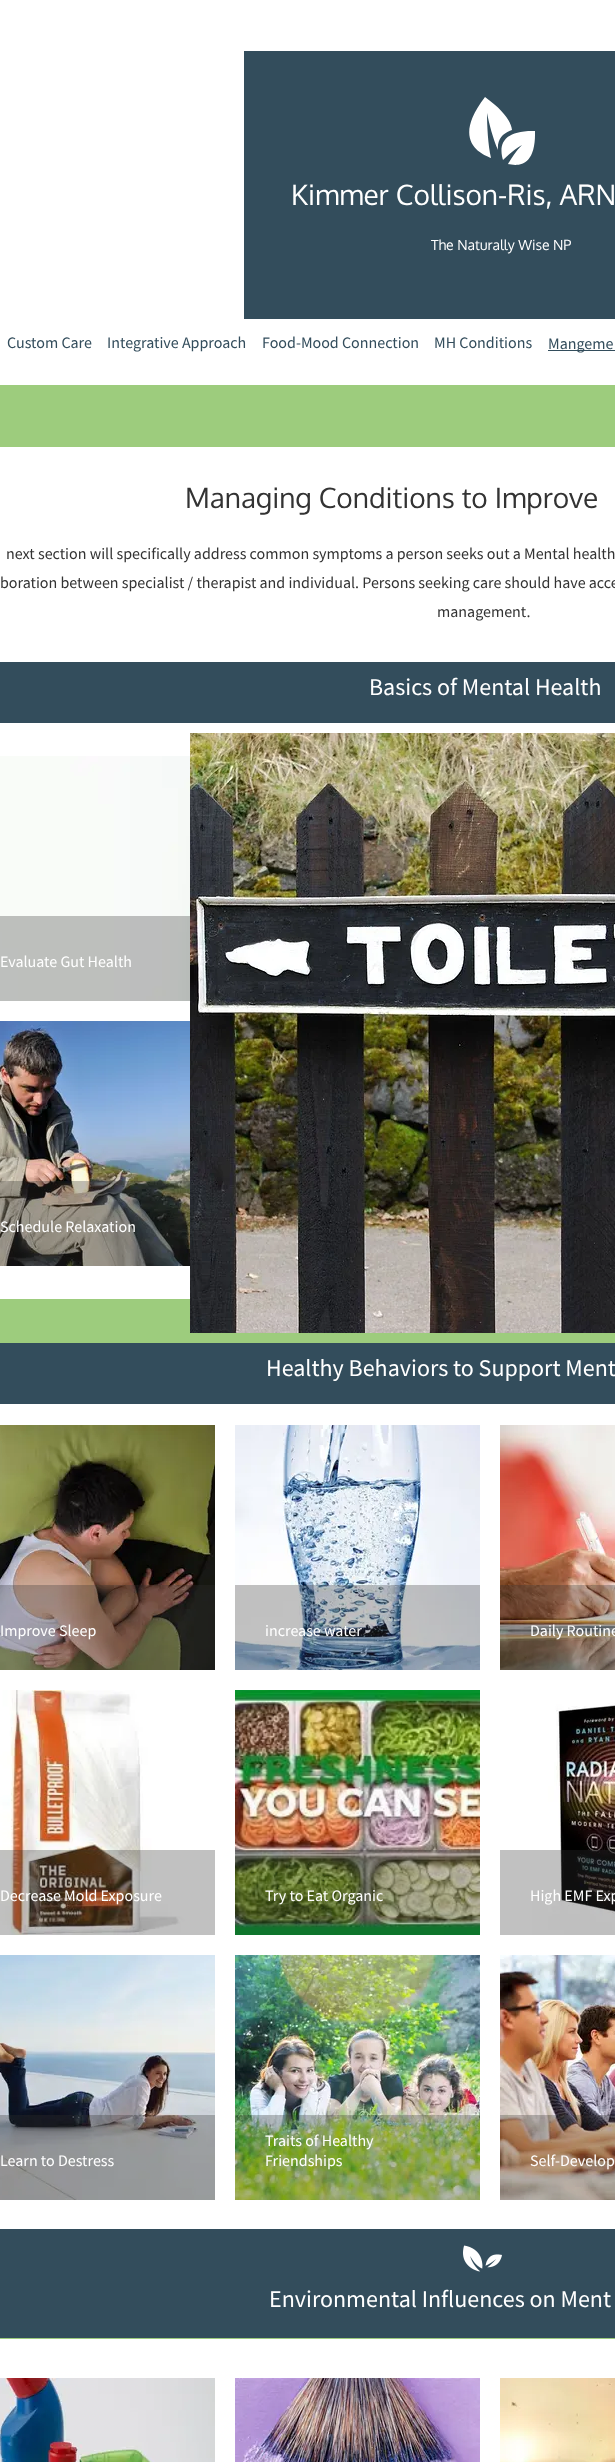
<svg xmlns="http://www.w3.org/2000/svg" width="615" height="2462">
	<rect width="100%" height="100%" fill="#9DCC7D" />
	<rect x="0" y="0" width="615" height="385" fill="#FFFFFF" />
	<rect x="244" y="51" width="371" height="268" fill="#334D5C" />
	<path d="M491 158C481 154 451 141 485 97C503 110 511 121 512 130C503 133 497 139 498 150C493 139 489 123 487 113C487 125 488 145 491 158Z" fill="#FFFFFF" fill-rule="evenodd" />
	<path d="M503 160C501 153 495 130 535 131C536 168 517 166 508 164C512 157 516 151 522 145C515 149 509 154 503 160Z" fill="#FFFFFF" fill-rule="evenodd" />
	<text x="291" y="205" font-family="'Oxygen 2'" font-size="28" fill="#FFFFFF">Kimmer Collison-Ris, ARN</text>
	<text x="431" y="250" font-family="'Oxygen 2'" font-size="14" fill="#FFFFFF">The Naturally Wise NP</text>
	<g font-family="Source Sans Pro" font-size="16" fill="#334D5C">
		<text x="7" y="348">Custom Care</text>
		<text x="107" y="348">Integrative Approach</text>
		<text x="262" y="348">Food-Mood Connection</text>
		<text x="434" y="348">MH Conditions</text>
	</g>
	<rect x="548" y="350" width="67" height="1" fill="#334D5C" />
	<text x="548" y="349" font-family="Source Sans Pro" font-size="16" fill="#334D5C">Mangeme</text>
	<rect x="0" y="447" width="615" height="215" fill="#FFFFFF" />
	<text x="185" y="508" font-family="Oxygen" font-size="28" fill="#333333">Managing Conditions to Improve</text>
	<g font-family="Source Sans Pro" font-size="16" fill="#333333">
		<text x="6" y="559">next section will specifically address common symptoms a person seeks out a Mental health</text>
		<text x="0" y="588">boration between specialist / therapist and individual. Persons seeking care should have acce</text>
		<text x="437" y="617">management.</text>
	</g>
	<rect x="0" y="662" width="615" height="61" fill="#334D5C" />
	<text x="369" y="695" font-family="Source Sans Pro" font-size="24" fill="#FFFFFF">Basics of Mental Health</text>
	<rect x="0" y="723" width="615" height="576" fill="#FFFFFF" />
	<image x="0" y="756" width="190" height="245" href="assets/img1.png" />
	<rect x="0" y="916" width="190" height="85" fill="#333333" fill-opacity="0.3" />
	<text x="0" y="967" font-family="Source Sans Pro" font-size="16" fill="#FFFFFF">Evaluate Gut Health</text>
	<image x="0" y="1021" width="190" height="245" href="assets/img2.png" />
	<rect x="0" y="1181" width="190" height="85" fill="#333333" fill-opacity="0.3" />
	<text x="0" y="1232" font-family="Source Sans Pro" font-size="16" fill="#FFFFFF">Schedule Relaxation</text>
	<image x="190" y="733" width="425" height="600" href="assets/img3.png" />
	<rect x="0" y="1343" width="615" height="61" fill="#334D5C" />
	<text x="266" y="1376" font-family="Source Sans Pro" font-size="24" fill="#FFFFFF">Healthy Behaviors to Support Ment</text>
	<rect x="0" y="1404" width="615" height="825" fill="#FFFFFF" />
	<image x="0" y="1425" width="215" height="245" href="assets/img4.png" />
	<rect x="0" y="1585" width="215" height="85" fill="#333333" fill-opacity="0.3" />
	<text x="0" y="1636" font-family="Source Sans Pro" font-size="16" fill="#FFFFFF">Improve Sleep</text>
	<image x="235" y="1425" width="245" height="245" href="assets/img5.png" />
	<rect x="235" y="1585" width="245" height="85" fill="#333333" fill-opacity="0.3" />
	<text x="265" y="1636" font-family="Source Sans Pro" font-size="16" fill="#FFFFFF">increase water</text>
	<image x="500" y="1425" width="115" height="245" href="assets/img6.png" />
	<rect x="500" y="1585" width="115" height="85" fill="#333333" fill-opacity="0.3" />
	<text x="530" y="1636" font-family="Source Sans Pro" font-size="16" fill="#FFFFFF">Daily Routine</text>
	<image x="0" y="1690" width="215" height="245" href="assets/img7.png" />
	<rect x="0" y="1850" width="215" height="85" fill="#333333" fill-opacity="0.3" />
	<text x="0" y="1901" font-family="Source Sans Pro" font-size="16" fill="#FFFFFF">Decrease Mold Exposure</text>
	<image x="235" y="1690" width="245" height="245" href="assets/img8.png" />
	<rect x="235" y="1850" width="245" height="85" fill="#333333" fill-opacity="0.3" />
	<text x="265" y="1901" font-family="Source Sans Pro" font-size="16" fill="#FFFFFF">Try to Eat Organic</text>
	<image x="500" y="1690" width="115" height="245" href="assets/img9.png" />
	<rect x="500" y="1850" width="115" height="85" fill="#333333" fill-opacity="0.3" />
	<text x="530" y="1901" font-family="Source Sans Pro" font-size="16" fill="#FFFFFF">High EMF Exp</text>
	<image x="0" y="1955" width="215" height="245" href="assets/img10.png" />
	<rect x="0" y="2115" width="215" height="85" fill="#333333" fill-opacity="0.3" />
	<text x="0" y="2166" font-family="Source Sans Pro" font-size="16" fill="#FFFFFF">Learn to Destress</text>
	<image x="235" y="1955" width="245" height="245" href="assets/img11.png" />
	<rect x="235" y="2115" width="245" height="85" fill="#333333" fill-opacity="0.3" />
	<g font-family="Source Sans Pro" font-size="16" fill="#FFFFFF">
		<text x="265" y="2146">Traits of Healthy</text>
		<text x="265" y="2166">Friendships</text>
	</g>
	<image x="500" y="1955" width="115" height="245" href="assets/img12.png" />
	<rect x="500" y="2115" width="115" height="85" fill="#333333" fill-opacity="0.3" />
	<text x="530" y="2166" font-family="Source Sans Pro" font-size="16" fill="#FFFFFF">Self-Develop</text>
	<rect x="0" y="2229" width="615" height="109" fill="#334D5C" />
	<image x="463" y="2245" width="39" height="27" href="assets/img13.png" />
	<text x="269" y="2307" font-family="Source Sans Pro" font-size="24" fill="#FFFFFF">Environmental Influences on Ment</text>
	<rect x="0" y="2339" width="615" height="123" fill="#FFFFFF" />
	<image x="0" y="2378" width="215" height="84" href="assets/img14.png" />
	<image x="235" y="2378" width="245" height="84" href="assets/img15.png" />
	<image x="500" y="2378" width="115" height="84" href="assets/img16.png" />
</svg>
